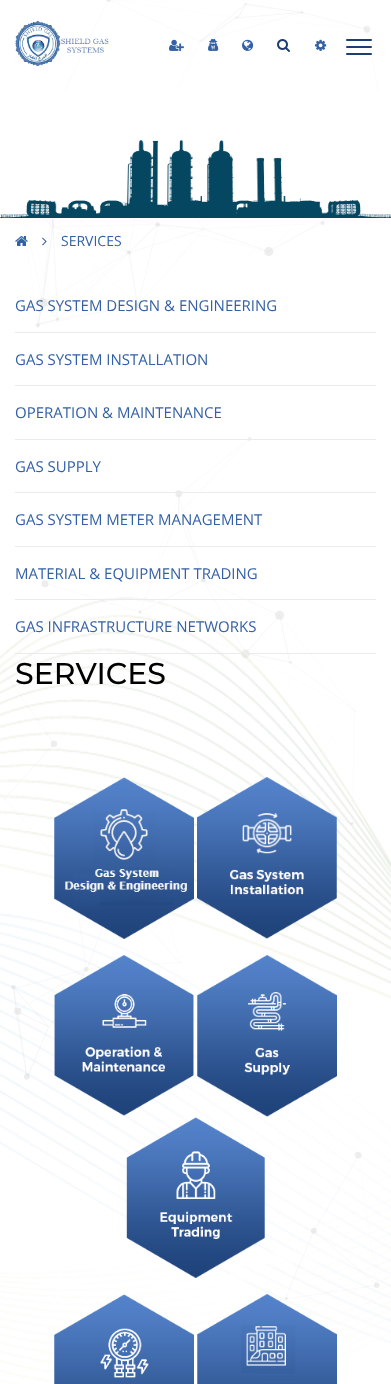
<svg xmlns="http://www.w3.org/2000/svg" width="391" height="1384">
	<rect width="100%" height="100%" fill="#FFFFFF" />
	<image x="1" y="0" width="389" height="1329" href="assets/img1.png" />
	<image x="15" y="21" width="94" height="45" href="assets/img2.png" />
	<rect x="346" y="39" width="26" height="2" rx="1" fill="#1C3E73" />
	<rect x="346" y="46" width="26" height="2" rx="1" fill="#1C3E73" />
	<rect x="346" y="53" width="26" height="2" rx="1" fill="#1C3E73" />
	<image x="169" y="39" width="15" height="12" href="assets/img3.png" />
	<image x="208" y="38" width="11" height="13" href="assets/img4.png" />
	<image x="242" y="39" width="12" height="12" href="assets/img5.png" />
	<image x="277" y="39" width="13" height="13" href="assets/img6.png" />
	<image x="315" y="39" width="12" height="12" href="assets/img7.png" />
	<rect x="18" y="91" width="372" height="127" fill="#FFFFFF" />
	<image x="0" y="140" width="391" height="78" href="assets/img8.png" />
	<image x="15" y="236" width="13" height="10" href="assets/img9.png" />
	<image x="42" y="237" width="5" height="9" href="assets/img10.png" />
	<text x="61" y="246" font-family="Open Sans" font-size="14" fill="#3461A5">SERVICES</text>
	<rect x="15" y="332" width="361" height="1" fill="#EBEBEB" />
	<text x="15" y="311" font-family="Open Sans" font-size="15" fill="#3461A5">GAS SYSTEM DESIGN &amp; ENGINEERING</text>
	<rect x="15" y="385" width="361" height="1" fill="#EBEBEB" />
	<text x="15" y="365" font-family="Open Sans" font-size="15" fill="#3461A5">GAS SYSTEM INSTALLATION</text>
	<rect x="15" y="439" width="361" height="1" fill="#EBEBEB" />
	<text x="15" y="418" font-family="Open Sans" font-size="15" fill="#3461A5">OPERATION &amp; MAINTENANCE</text>
	<rect x="15" y="492" width="361" height="1" fill="#EBEBEB" />
	<text x="15" y="472" font-family="Open Sans" font-size="15" fill="#3461A5">GAS SUPPLY</text>
	<rect x="15" y="546" width="361" height="1" fill="#EBEBEB" />
	<text x="15" y="525" font-family="Open Sans" font-size="15" fill="#3461A5">GAS SYSTEM METER MANAGEMENT</text>
	<image x="0" y="597" width="391" height="787" href="assets/img18.png" />
	<rect x="15" y="599" width="361" height="1" fill="#EBEBEB" />
	<text x="15" y="579" font-family="Open Sans" font-size="15" fill="#3461A5">MATERIAL &amp; EQUIPMENT TRADING</text>
	<rect x="15" y="653" width="361" height="1" fill="#EBEBEB" />
	<text x="15" y="632" font-family="Open Sans" font-size="15" fill="#3461A5">GAS INFRASTRUCTURE NETWORKS</text>
	<text x="15" y="684" font-family="Montserrat" font-size="30" font-weight="500" fill="#000000">SERVICES</text>
	<image x="54" y="777" width="140" height="162" href="assets/img11.png" />
	<image x="197" y="777" width="140" height="162" href="assets/img12.png" />
	<image x="54" y="955" width="140" height="161" href="assets/img13.png" />
	<image x="197" y="955" width="140" height="162" href="assets/img14.png" />
	<image x="126" y="1117" width="139" height="161" href="assets/img15.png" />
	<image x="54" y="1294" width="140" height="90" href="assets/img16.png" />
	<image x="197" y="1294" width="140" height="90" href="assets/img17.png" />
</svg>
